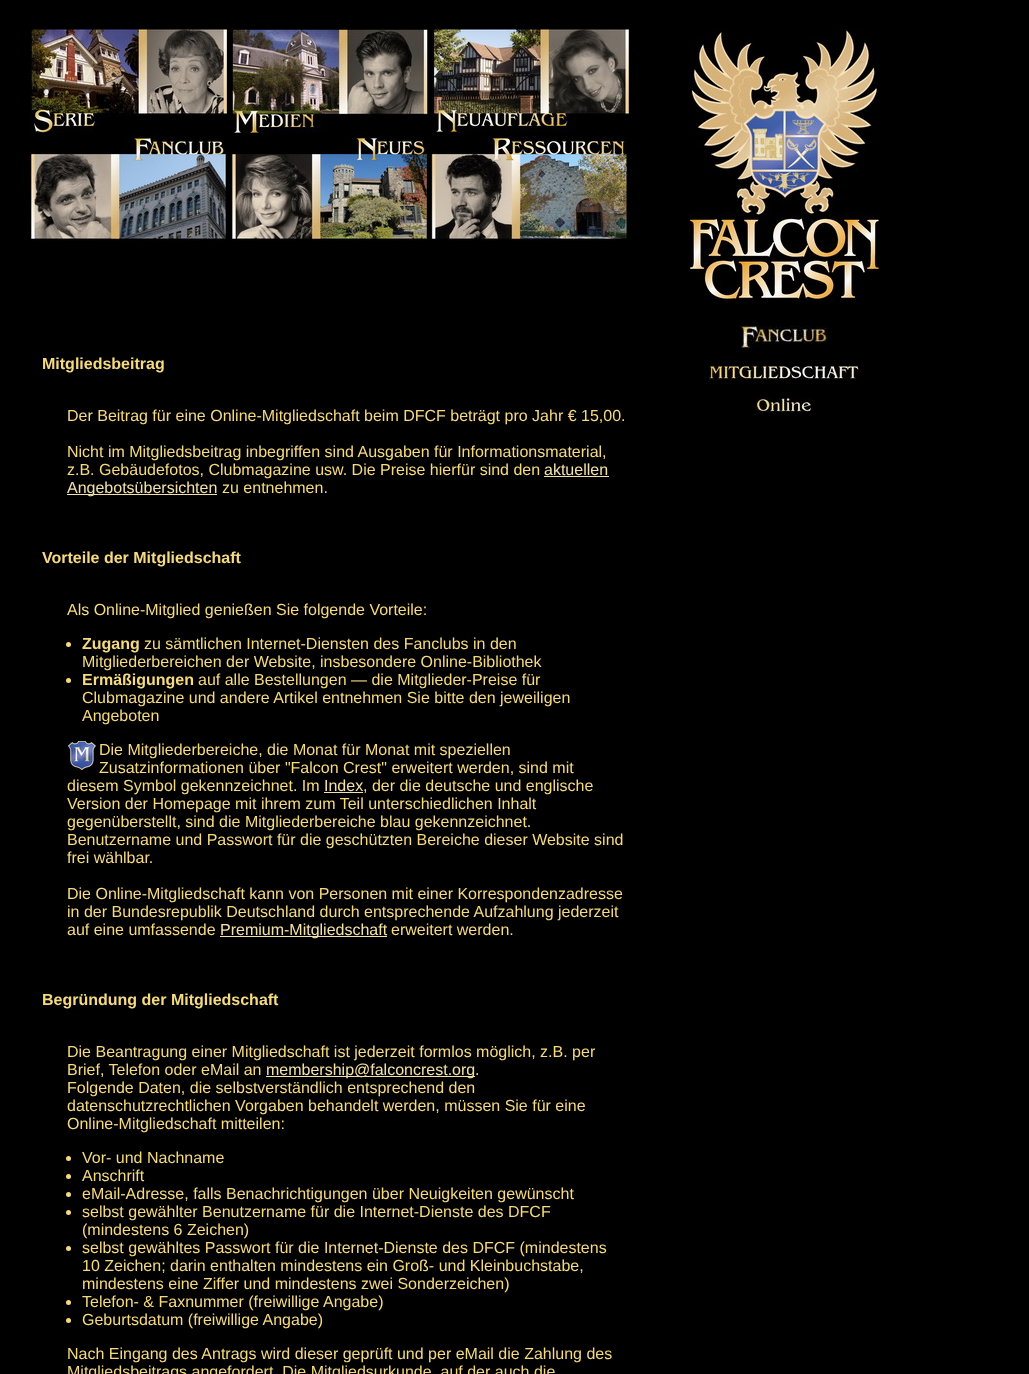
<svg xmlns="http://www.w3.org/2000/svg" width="1029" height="1374">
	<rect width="100%" height="100%" fill="#000000" />
	<image x="689" y="29" width="190" height="272" href="assets/img1.png" />
	<image x="740" y="326" width="88" height="22" href="assets/img2.png" />
	<image x="709" y="366" width="150" height="14" href="assets/img3.png" />
	<image x="756" y="398" width="56" height="15" href="assets/img4.png" />
	<image x="30" y="29" width="197" height="104" href="assets/img5.png" />
	<image x="232" y="29" width="196" height="104" href="assets/img6.png" />
	<image x="432" y="29" width="197" height="104" href="assets/img7.png" />
	<image x="30" y="137" width="196" height="104" href="assets/img8.png" />
	<image x="231" y="137" width="196" height="104" href="assets/img9.png" />
	<image x="431" y="137" width="196" height="104" href="assets/img10.png" />
	<text x="42" y="369" font-family="Liberation Sans" font-size="16" font-weight="700" fill="#F5DA81">Mitgliedsbeitrag</text>
	<g font-family="Liberation Sans" font-size="16" fill="#F5DA81">
		<text x="67" y="421">Der Beitrag für eine Online-Mitgliedschaft beim DFCF beträgt pro Jahr € 15,00.</text>
		<text x="67" y="457">Nicht im Mitgliedsbeitrag inbegriffen sind Ausgaben für Informationsmaterial,</text>
		<text x="67" y="475">z.B. Gebäudefotos, Clubmagazine usw. Die Preise hierfür sind den</text>
	</g>
	<text x="544" y="475" font-family="Liberation Sans" font-size="16" fill="#F3E2A9">aktuellen</text>
	<rect x="544" y="476" width="65" height="1" fill="#F3E2A9" />
	<rect x="67" y="494" width="150" height="1" fill="#F3E2A9" />
	<text x="67" y="493" font-family="Liberation Sans" font-size="16" fill="#F3E2A9">Angebotsübersichten</text>
	<text x="222" y="493" font-family="Liberation Sans" font-size="16" fill="#F5DA81">zu entnehmen.</text>
	<text x="42" y="563" font-family="Liberation Sans" font-size="16" font-weight="700" fill="#F5DA81">Vorteile der Mitgliedschaft</text>
	<text x="67" y="615" font-family="Liberation Sans" font-size="16" fill="#F5DA81">Als Online-Mitglied genießen Sie folgende Vorteile:</text>
	<circle cx="68.5" cy="644.5" r="2.5" fill="#F5DA81" />
	<text x="82" y="649" font-family="Liberation Sans" font-size="16" font-weight="700" fill="#F5DA81">Zugang</text>
	<g font-family="Liberation Sans" font-size="16" fill="#F5DA81">
		<text x="144" y="649">zu sämtlichen Internet-Diensten des Fanclubs in den</text>
		<text x="82" y="667">Mitgliederbereichen der Website, insbesondere Online-Bibliothek</text>
	</g>
	<circle cx="68.5" cy="680.5" r="2.5" fill="#F5DA81" />
	<text x="82" y="685" font-family="Liberation Sans" font-size="16" font-weight="700" fill="#F5DA81">Ermäßigungen</text>
	<g font-family="Liberation Sans" font-size="16" fill="#F5DA81">
		<text x="198" y="685">auf alle Bestellungen — die Mitglieder-Preise für</text>
		<text x="82" y="703">Clubmagazine und andere Artikel entnehmen Sie bitte den jeweiligen</text>
		<text x="82" y="721">Angeboten</text>
	</g>
	<image x="67" y="741" width="29" height="30" href="assets/img11.png" />
	<g font-family="Liberation Sans" font-size="16" fill="#F5DA81">
		<text x="99" y="755">Die Mitgliederbereiche, die Monat für Monat mit speziellen</text>
		<text x="99" y="773">Zusatzinformationen über "Falcon Crest" erweitert werden, sind mit</text>
		<text x="67" y="791">diesem Symbol gekennzeichnet. Im</text>
	</g>
	<text x="324" y="791" font-family="Liberation Sans" font-size="16" fill="#F3E2A9">Index</text>
	<rect x="324" y="792" width="39" height="1" fill="#F3E2A9" />
	<g font-family="Liberation Sans" font-size="16" fill="#F5DA81">
		<text x="363" y="791">, der die deutsche und englische</text>
		<text x="67" y="809">Version der Homepage mit ihrem zum Teil unterschiedlichen Inhalt</text>
		<text x="67" y="827">gegenüberstellt, sind die Mitgliederbereiche blau gekennzeichnet.</text>
		<text x="67" y="845">Benutzername und Passwort für die geschützten Bereiche dieser Website sind</text>
		<text x="67" y="863">frei wählbar.</text>
		<text x="67" y="899">Die Online-Mitgliedschaft kann von Personen mit einer Korrespondenzadresse</text>
		<text x="67" y="917">in der Bundesrepublik Deutschland durch entsprechende Aufzahlung jederzeit</text>
		<text x="67" y="935">auf eine umfassende</text>
	</g>
	<rect x="220" y="936" width="167" height="1" fill="#F3E2A9" />
	<text x="220" y="935" font-family="Liberation Sans" font-size="16" fill="#F3E2A9">Premium-Mitgliedschaft</text>
	<text x="391" y="935" font-family="Liberation Sans" font-size="16" fill="#F5DA81">erweitert werden.</text>
	<text x="42" y="1005" font-family="Liberation Sans" font-size="16" font-weight="700" fill="#F5DA81">Begründung der Mitgliedschaft</text>
	<g font-family="Liberation Sans" font-size="16" fill="#F5DA81">
		<text x="67" y="1057">Die Beantragung einer Mitgliedschaft ist jederzeit formlos möglich, z.B. per</text>
		<text x="67" y="1075">Brief, Telefon oder eMail an</text>
	</g>
	<rect x="266" y="1076" width="209" height="1" fill="#F3E2A9" />
	<text x="266" y="1075" font-family="Liberation Sans" font-size="16" fill="#F3E2A9">membership@falconcrest.org</text>
	<g font-family="Liberation Sans" font-size="16" fill="#F5DA81">
		<text x="475" y="1075">.</text>
		<text x="67" y="1093">Folgende Daten, die selbstverständlich entsprechend den</text>
		<text x="67" y="1111">datenschutzrechtlichen Vorgaben behandelt werden, müssen Sie für eine</text>
		<text x="67" y="1129">Online-Mitgliedschaft mitteilen:</text>
	</g>
	<circle cx="68.5" cy="1158.5" r="2.5" fill="#F5DA81" />
	<text x="82" y="1163" font-family="Liberation Sans" font-size="16" fill="#F5DA81">Vor- und Nachname</text>
	<circle cx="68.5" cy="1176.5" r="2.5" fill="#F5DA81" />
	<text x="82" y="1181" font-family="Liberation Sans" font-size="16" fill="#F5DA81">Anschrift</text>
	<circle cx="68.5" cy="1194.5" r="2.5" fill="#F5DA81" />
	<text x="82" y="1199" font-family="Liberation Sans" font-size="16" fill="#F5DA81">eMail-Adresse, falls Benachrichtigungen über Neuigkeiten gewünscht</text>
	<circle cx="68.5" cy="1212.5" r="2.5" fill="#F5DA81" />
	<g font-family="Liberation Sans" font-size="16" fill="#F5DA81">
		<text x="82" y="1217">selbst gewählter Benutzername für die Internet-Dienste des DFCF</text>
		<text x="82" y="1235">(mindestens 6 Zeichen)</text>
	</g>
	<circle cx="68.5" cy="1248.5" r="2.5" fill="#F5DA81" />
	<g font-family="Liberation Sans" font-size="16" fill="#F5DA81">
		<text x="82" y="1253">selbst gewähltes Passwort für die Internet-Dienste des DFCF (mindestens</text>
		<text x="82" y="1271">10 Zeichen; darin enthalten mindestens ein Groß- und Kleinbuchstabe,</text>
		<text x="82" y="1289">mindestens eine Ziffer und mindestens zwei Sonderzeichen)</text>
	</g>
	<circle cx="68.5" cy="1302.5" r="2.5" fill="#F5DA81" />
	<text x="82" y="1307" font-family="Liberation Sans" font-size="16" fill="#F5DA81">Telefon- &amp; Faxnummer (freiwillige Angabe)</text>
	<circle cx="68.5" cy="1320.5" r="2.5" fill="#F5DA81" />
	<g font-family="Liberation Sans" font-size="16" fill="#F5DA81">
		<text x="82" y="1325">Geburtsdatum (freiwillige Angabe)</text>
		<text x="67" y="1359">Nach Eingang des Antrags wird dieser geprüft und per eMail die Zahlung des</text>
		<text x="67" y="1377">Mitgliedsbeitrags angefordert. Die Mitgliedsurkunde, auf der auch die</text>
	</g>
</svg>
